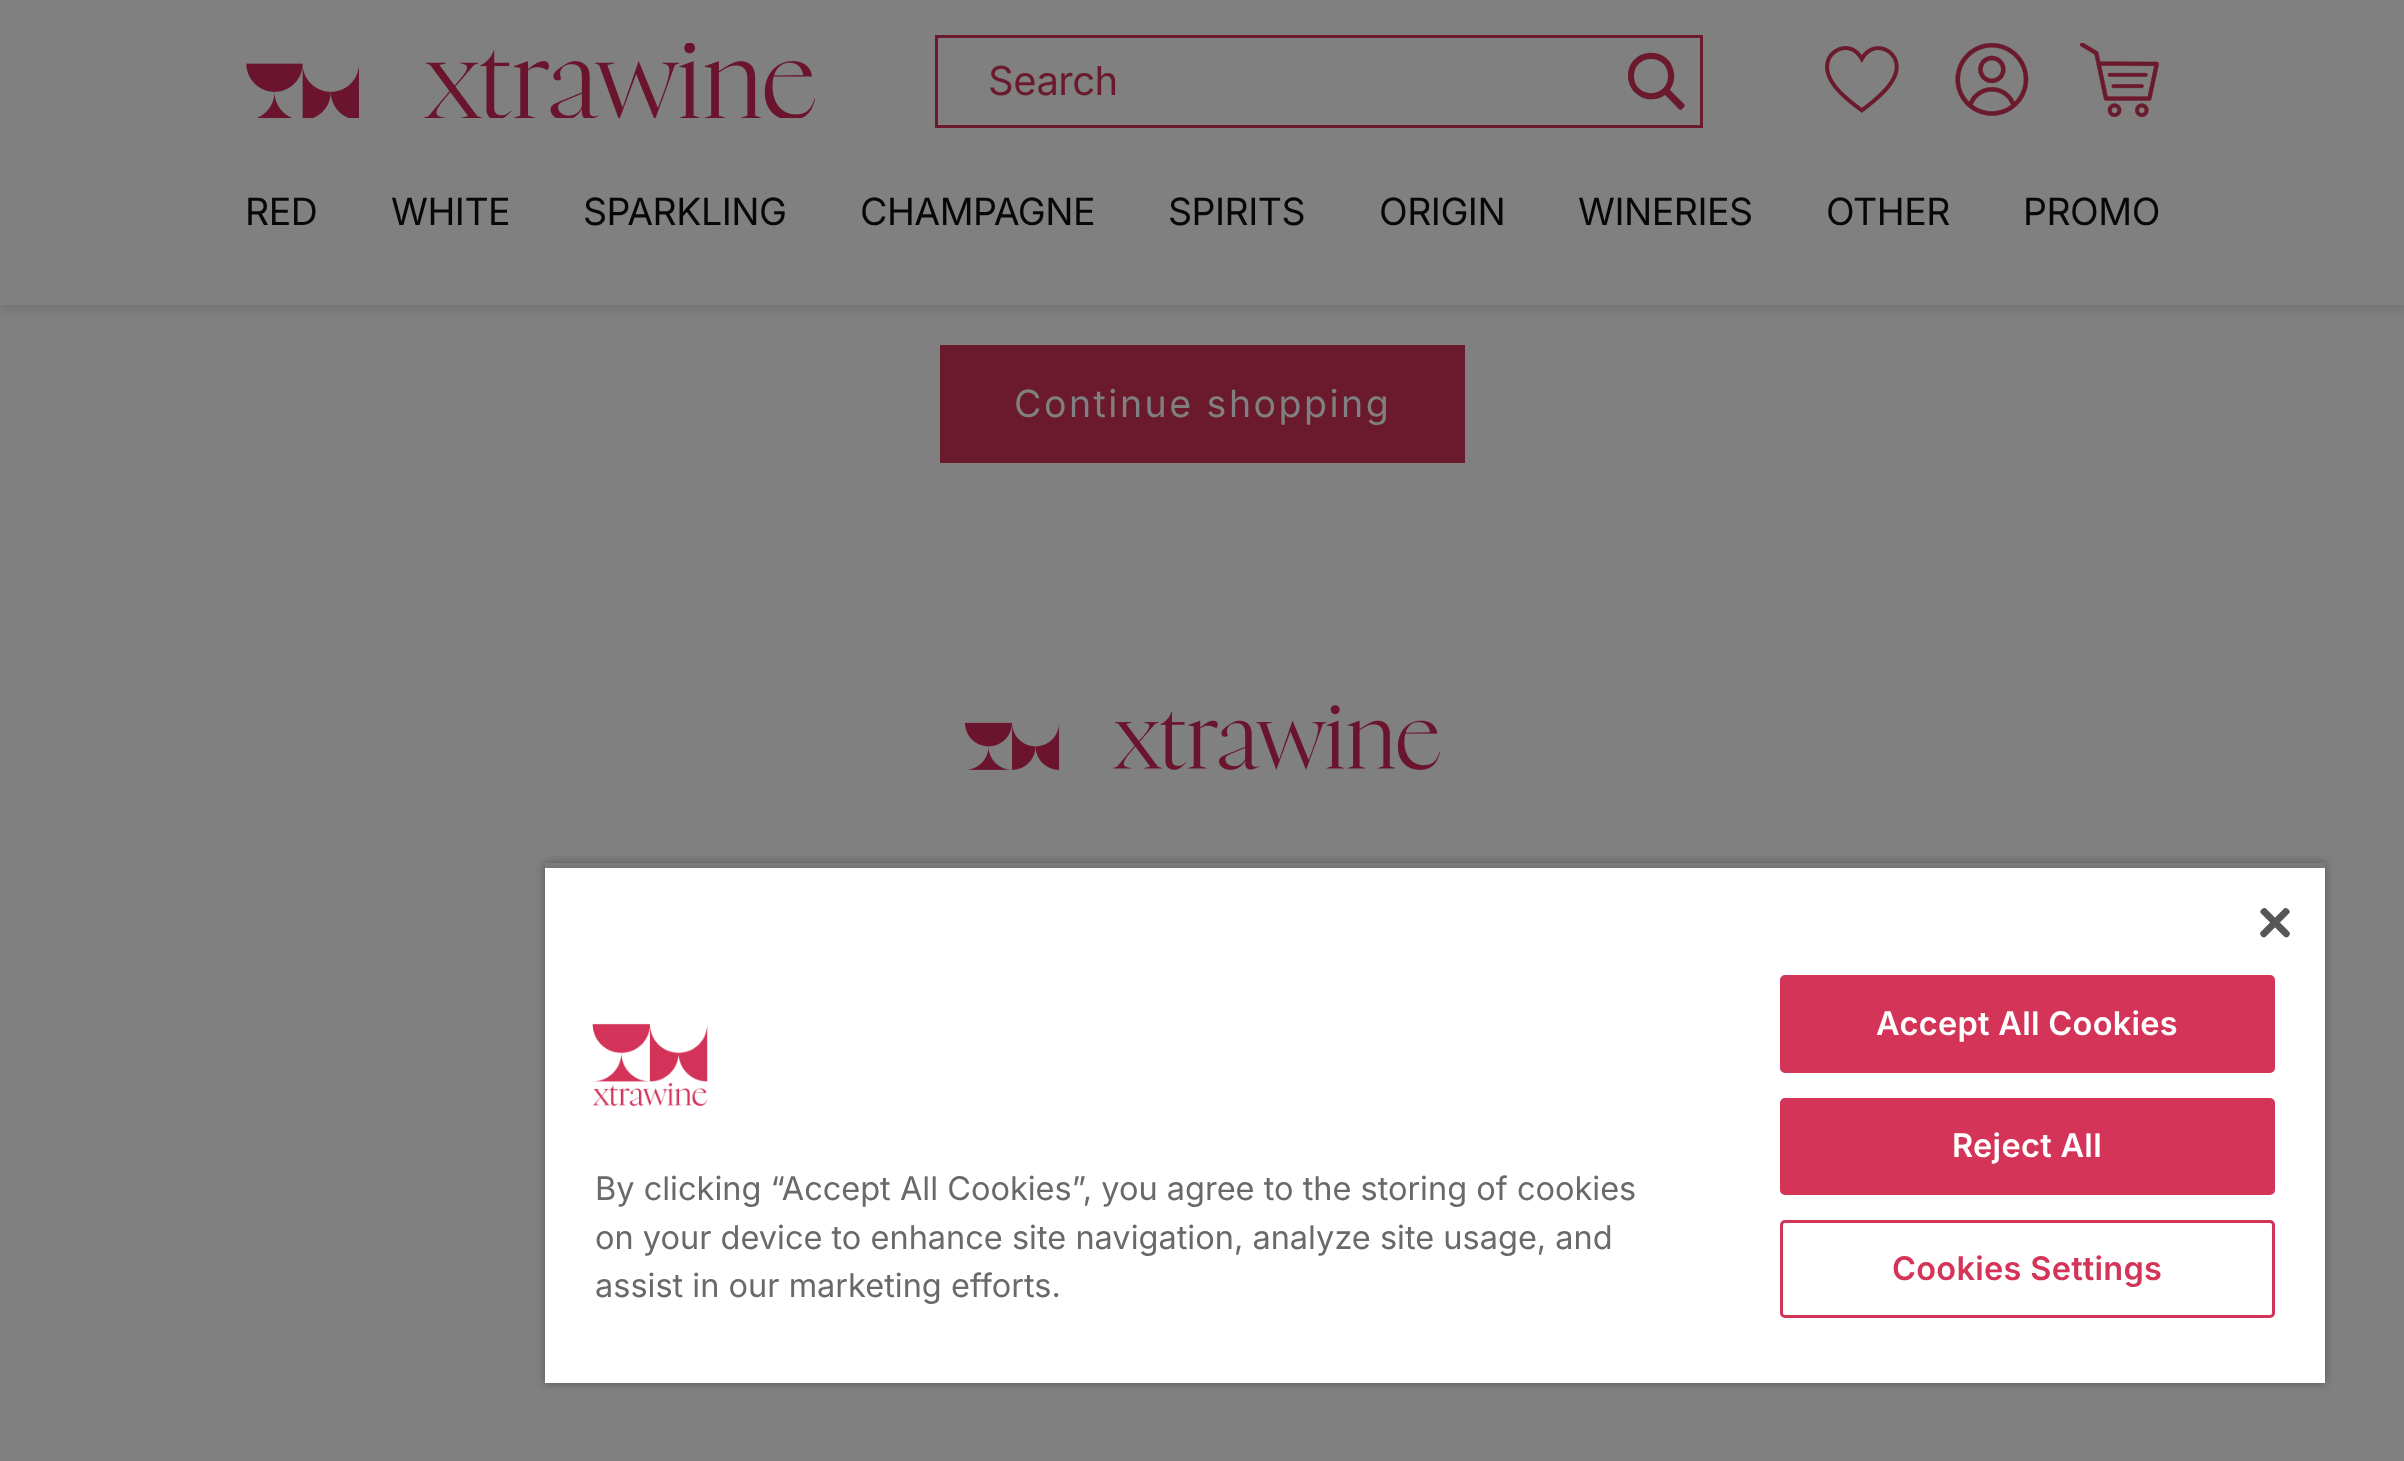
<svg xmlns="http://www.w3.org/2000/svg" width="2404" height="1461">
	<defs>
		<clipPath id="clip1"><path d="M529 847H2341V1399H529ZM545 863H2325V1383H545Z" clip-rule="evenodd" /></clipPath>
		<clipPath id="clip2"><rect x="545" y="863" width="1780" height="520" /></clipPath>
	</defs>
	<rect width="100%" height="100%" fill="#808080" />
	<rect x="0" y="5" width="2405" height="305" fill="#000000" fill-opacity="0.1" filter="blur(5px)" />
	<rect x="0" y="1" width="2404" height="304" fill="#808080" />
	<image x="246" y="43" width="569" height="75" href="assets/img1.png" />
	<path d="M1628 76C1628 95 1650 106 1665 95L1675 105C1679 109 1680 112 1683 108C1687 105 1684 104 1680 100L1670 90C1673 85 1675 79 1674 73C1670 44 1628 47 1628 76ZM1634 76C1634 54 1667 53 1668 75C1669 99 1634 99 1634 76Z" fill="#6A1A2C" />
	<rect x="936.5" y="36.5" width="765" height="90" fill="none" stroke="#6A1A2C" stroke-width="3" />
	<text x="988" y="95" font-family="Inter" font-size="40" letter-spacing="-0.5" fill="#6A1A2C">Search</text>
	<image x="1825" y="46" width="74" height="67" href="assets/img2.png" />
	<image x="1955" y="43" width="74" height="73" href="assets/img3.png" />
	<image x="2080" y="43" width="79" height="74" href="assets/img4.png" />
	<g font-family="Inter" font-size="37.5" letter-spacing="-0.5" fill="#070707">
		<text x="245" y="225">RED</text>
		<text x="391" y="225">WHITE</text>
		<text x="583" y="225">SPARKLING</text>
		<text x="860" y="225">CHAMPAGNE</text>
		<text x="1168" y="225">SPIRITS</text>
		<text x="1379" y="225">ORIGIN</text>
		<text x="1578" y="225">WINERIES</text>
		<text x="1826" y="225">OTHER</text>
		<text x="2023" y="225">PROMO</text>
	</g>
	<rect x="940" y="345" width="525" height="118" fill="#6A1A2C" />
	<text x="1014" y="417" font-family="Inter" font-size="37.5" letter-spacing="2.5" fill="#808080">Continue shopping</text>
	<image x="965" y="705" width="475" height="65" href="assets/img5.png" />
	<g clip-path="url(#clip1)">
		<rect x="545" y="863" width="1780" height="520" fill="#000000" fill-opacity="0.35" filter="blur(5px)" />
	</g>
	<g clip-path="url(#clip2)">
		<rect x="545" y="868" width="1780" height="515" fill="#000000" fill-opacity="0.2" filter="blur(5px)" />
	</g>
	<rect x="545" y="868" width="1780" height="515" fill="#FFFFFF" />
	<image x="2260" y="908" width="30" height="30" href="assets/img6.png" />
	<image x="592" y="1023" width="116" height="83" href="assets/img7.png" />
	<g font-family="Inter" font-size="32.5" fill="#696969">
		<text x="595" y="1200">By clicking “Accept All Cookies”, you agree to the storing of cookies</text>
		<text x="595" y="1249">on your device to enhance site navigation, analyze site usage, and</text>
		<text x="595" y="1297">assist in our marketing efforts.</text>
	</g>
	<rect x="1781.5" y="976.5" width="492" height="95" rx="3.5" fill="#D33458" stroke="#D33458" stroke-width="3" />
	<text x="1876" y="1035" font-family="Inter" font-size="32.5" font-weight="600" letter-spacing="0.3" fill="#FFFFFF">Accept All Cookies</text>
	<rect x="1781.5" y="1099.5" width="492" height="94" rx="3.5" fill="#D33458" stroke="#D33458" stroke-width="3" />
	<text x="1952" y="1157" font-family="Inter" font-size="32.5" font-weight="600" letter-spacing="0.3" fill="#FFFFFF">Reject All</text>
	<rect x="1781.5" y="1221.5" width="492" height="95" rx="3.5" fill="none" stroke="#D33458" stroke-width="3" />
	<text x="1892" y="1280" font-family="Inter" font-size="32.5" font-weight="600" letter-spacing="0.3" fill="#D33458">Cookies Settings</text>
</svg>
